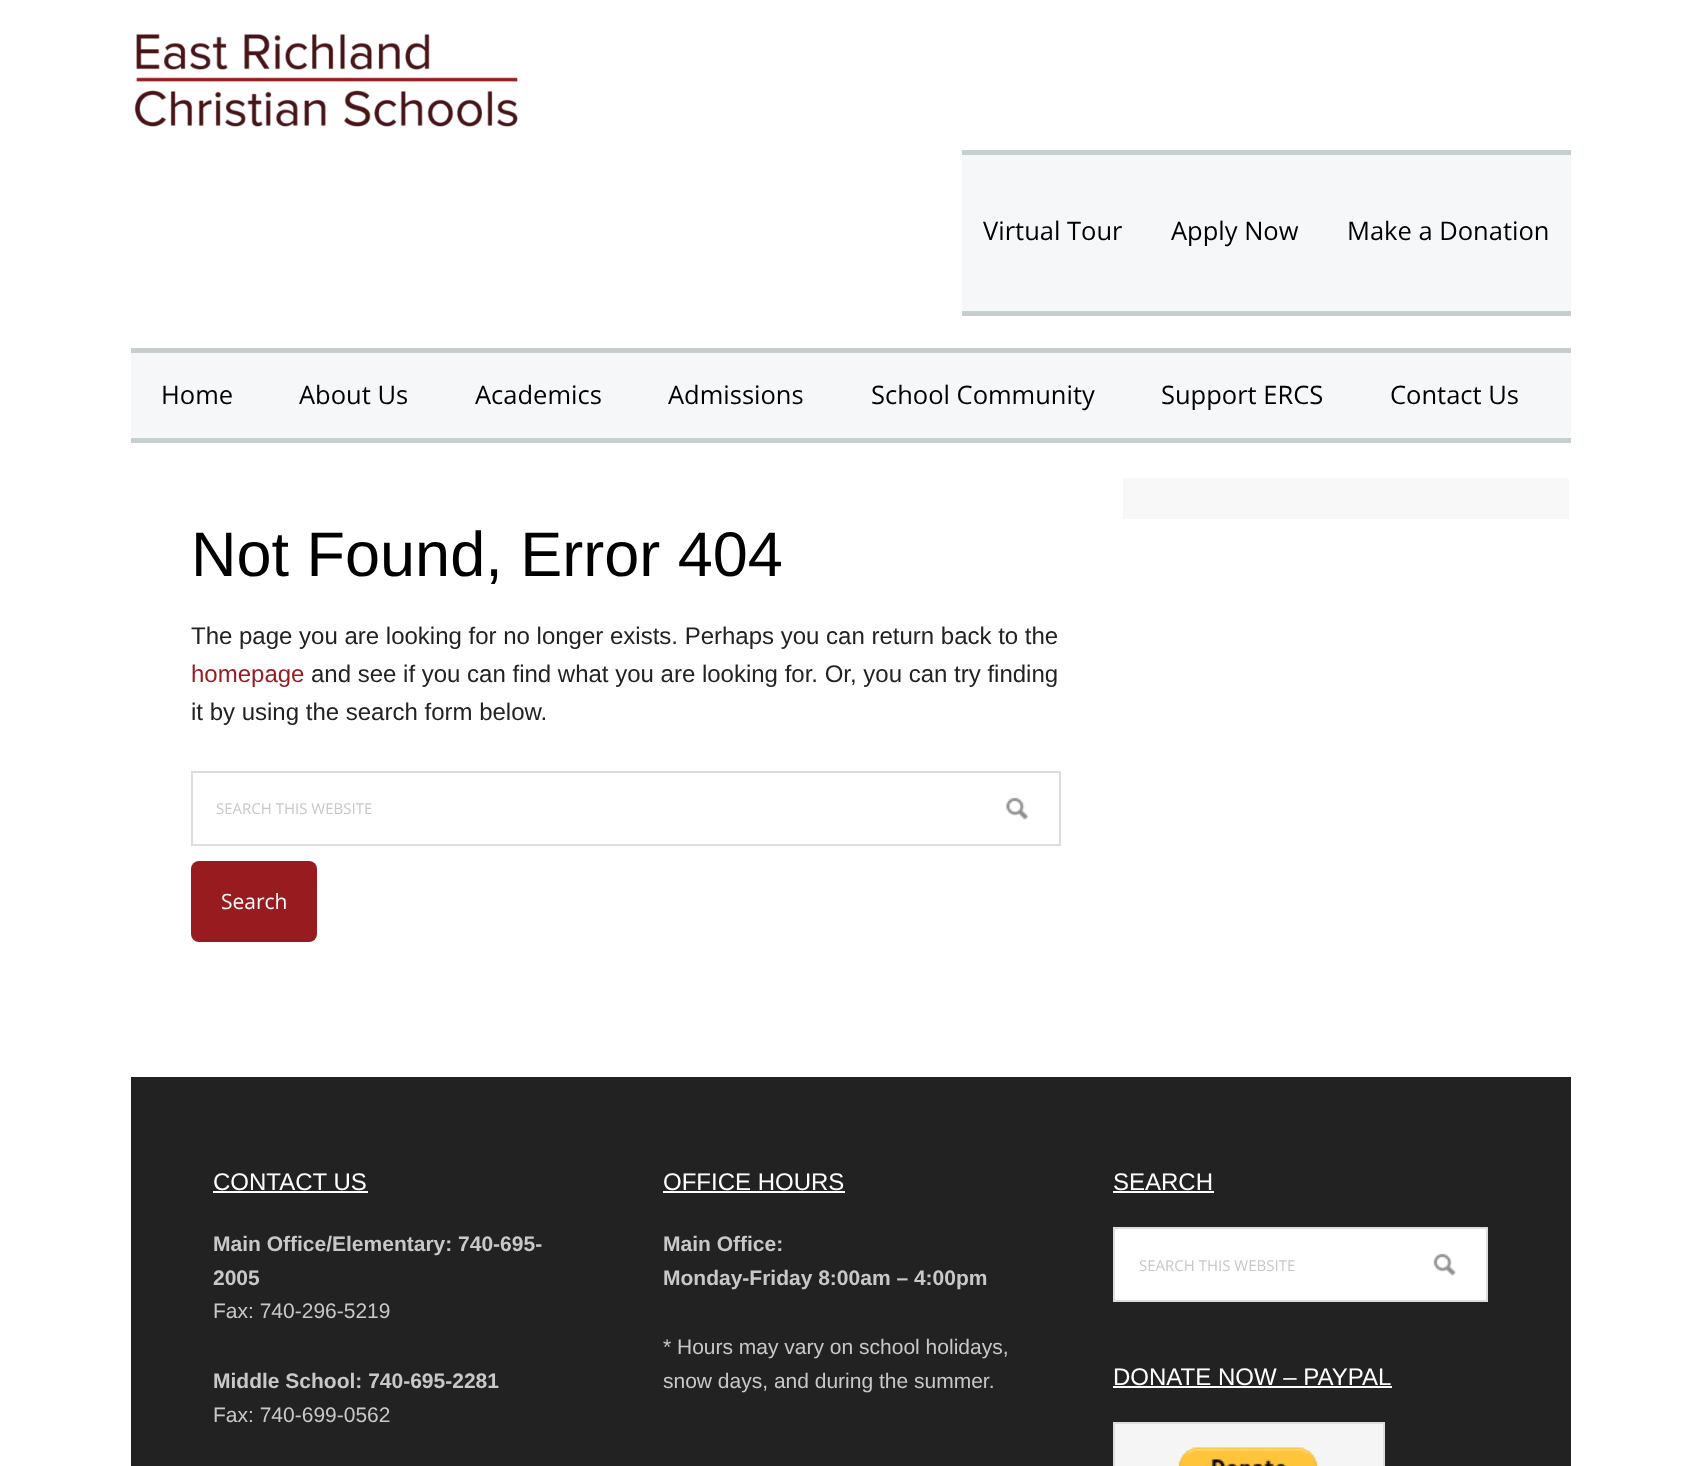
<svg xmlns="http://www.w3.org/2000/svg" width="1701" height="1466">
	<rect width="100%" height="100%" fill="#FFFFFF" />
	<image x="134" y="33" width="384" height="94" href="assets/img1.png" />
	<rect x="962" y="155" width="609" height="156" fill="#F5F7F8" />
	<rect x="962" y="150" width="609" height="5" fill="#C6CECE" />
	<rect x="962" y="311" width="609" height="5" fill="#C6CECE" />
	<g font-family="Open Sans" font-size="25.5" fill="#000000">
		<text x="983" y="240">Virtual Tour</text>
		<text x="1171" y="240">Apply Now</text>
		<text x="1347" y="240">Make a Donation</text>
	</g>
	<rect x="131" y="353" width="1440" height="85" fill="#F5F7F8" />
	<rect x="131" y="348" width="1440" height="5" fill="#C6CECE" />
	<rect x="131" y="438" width="1440" height="5" fill="#C6CECE" />
	<g font-family="Open Sans" font-size="25.5" fill="#000000">
		<text x="161" y="404">Home</text>
		<text x="299" y="404">About Us</text>
		<text x="475" y="404">Academics</text>
		<text x="668" y="404">Admissions</text>
		<text x="871" y="404">School Community</text>
		<text x="1161" y="404">Support ERCS</text>
		<text x="1390" y="404">Contact Us</text>
	</g>
	<rect x="1123" y="478" width="446" height="41" fill="#F8F8F8" />
	<text x="191" y="576" font-family="Liberation Sans" font-size="63" fill="#000000">Not Found, Error 404</text>
	<text x="191" y="644" font-family="Liberation Sans" font-size="24" fill="#222222">The page you are looking for no longer exists. Perhaps you can return back to the</text>
	<text x="191" y="682" font-family="Liberation Sans" font-size="24" fill="#971B1F">homepage</text>
	<g font-family="Liberation Sans" font-size="24" fill="#222222">
		<text x="311" y="682">and see if you can find what you are looking for. Or, you can try finding</text>
		<text x="191" y="720">it by using the search form below.</text>
	</g>
	<image x="1006" y="797" width="22" height="23" href="assets/img2.png" />
	<rect x="192" y="772" width="868" height="73" fill="none" stroke="#DDDDDD" stroke-width="2" />
	<text x="216" y="814" font-family="Open Sans" font-size="15" fill="#C8C8C8">SEARCH THIS WEBSITE</text>
	<rect x="191" y="861" width="126" height="81" rx="8" fill="#971B1F" />
	<text x="221" y="909" font-family="Open Sans" font-size="21" fill="#FFFFFF">Search</text>
	<rect x="131" y="1077" width="1440" height="389" fill="#222222" />
	<text x="213" y="1190" font-family="Liberation Sans" font-size="24" fill="#FFFFFF">CONTACT US</text>
	<rect x="213" y="1191" width="155" height="2" fill="#FFFFFF" />
	<g font-family="Liberation Sans" font-size="21" font-weight="700" fill="#C8C8C8">
		<text x="213" y="1251">Main Office/Elementary: 740-695-</text>
		<text x="213" y="1285">2005</text>
	</g>
	<text x="213" y="1318" font-family="Liberation Sans" font-size="21" fill="#C8C8C8">Fax: 740-296-5219</text>
	<text x="213" y="1388" font-family="Liberation Sans" font-size="21" font-weight="700" fill="#C8C8C8">Middle School: 740-695-2281</text>
	<text x="213" y="1422" font-family="Liberation Sans" font-size="21" fill="#C8C8C8">Fax: 740-699-0562</text>
	<text x="663" y="1190" font-family="Liberation Sans" font-size="24" fill="#FFFFFF">OFFICE HOURS</text>
	<rect x="663" y="1191" width="182" height="2" fill="#FFFFFF" />
	<g font-family="Liberation Sans" font-size="21" font-weight="700" fill="#C8C8C8">
		<text x="663" y="1251">Main Office:</text>
		<text x="663" y="1285">Monday-Friday 8:00am – 4:00pm</text>
	</g>
	<g font-family="Liberation Sans" font-size="21" fill="#C8C8C8">
		<text x="663" y="1354">* Hours may vary on school holidays,</text>
		<text x="663" y="1388">snow days, and during the summer.</text>
	</g>
	<text x="1113" y="1190" font-family="Liberation Sans" font-size="24" fill="#FFFFFF">SEARCH</text>
	<rect x="1113" y="1191" width="101" height="2" fill="#FFFFFF" />
	<rect x="1115" y="1229" width="371" height="71" fill="#FFFFFF" />
	<image x="1433" y="1253" width="23" height="23" href="assets/img3.png" />
	<rect x="1114" y="1228" width="373" height="73" fill="none" stroke="#DDDDDD" stroke-width="2" />
	<text x="1139" y="1271" font-family="Open Sans" font-size="15" fill="#C8C8C8">SEARCH THIS WEBSITE</text>
	<text x="1113" y="1385" font-family="Liberation Sans" font-size="24" fill="#FFFFFF">DONATE NOW – PAYPAL</text>
	<rect x="1113" y="1386" width="279" height="2" fill="#FFFFFF" />
	<rect x="1114" y="1423" width="270" height="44" fill="#F5F5F5" stroke="#DDDDDD" stroke-width="2" />
	<image x="1178" y="1447" width="140" height="19" href="assets/img4.png" />
</svg>
